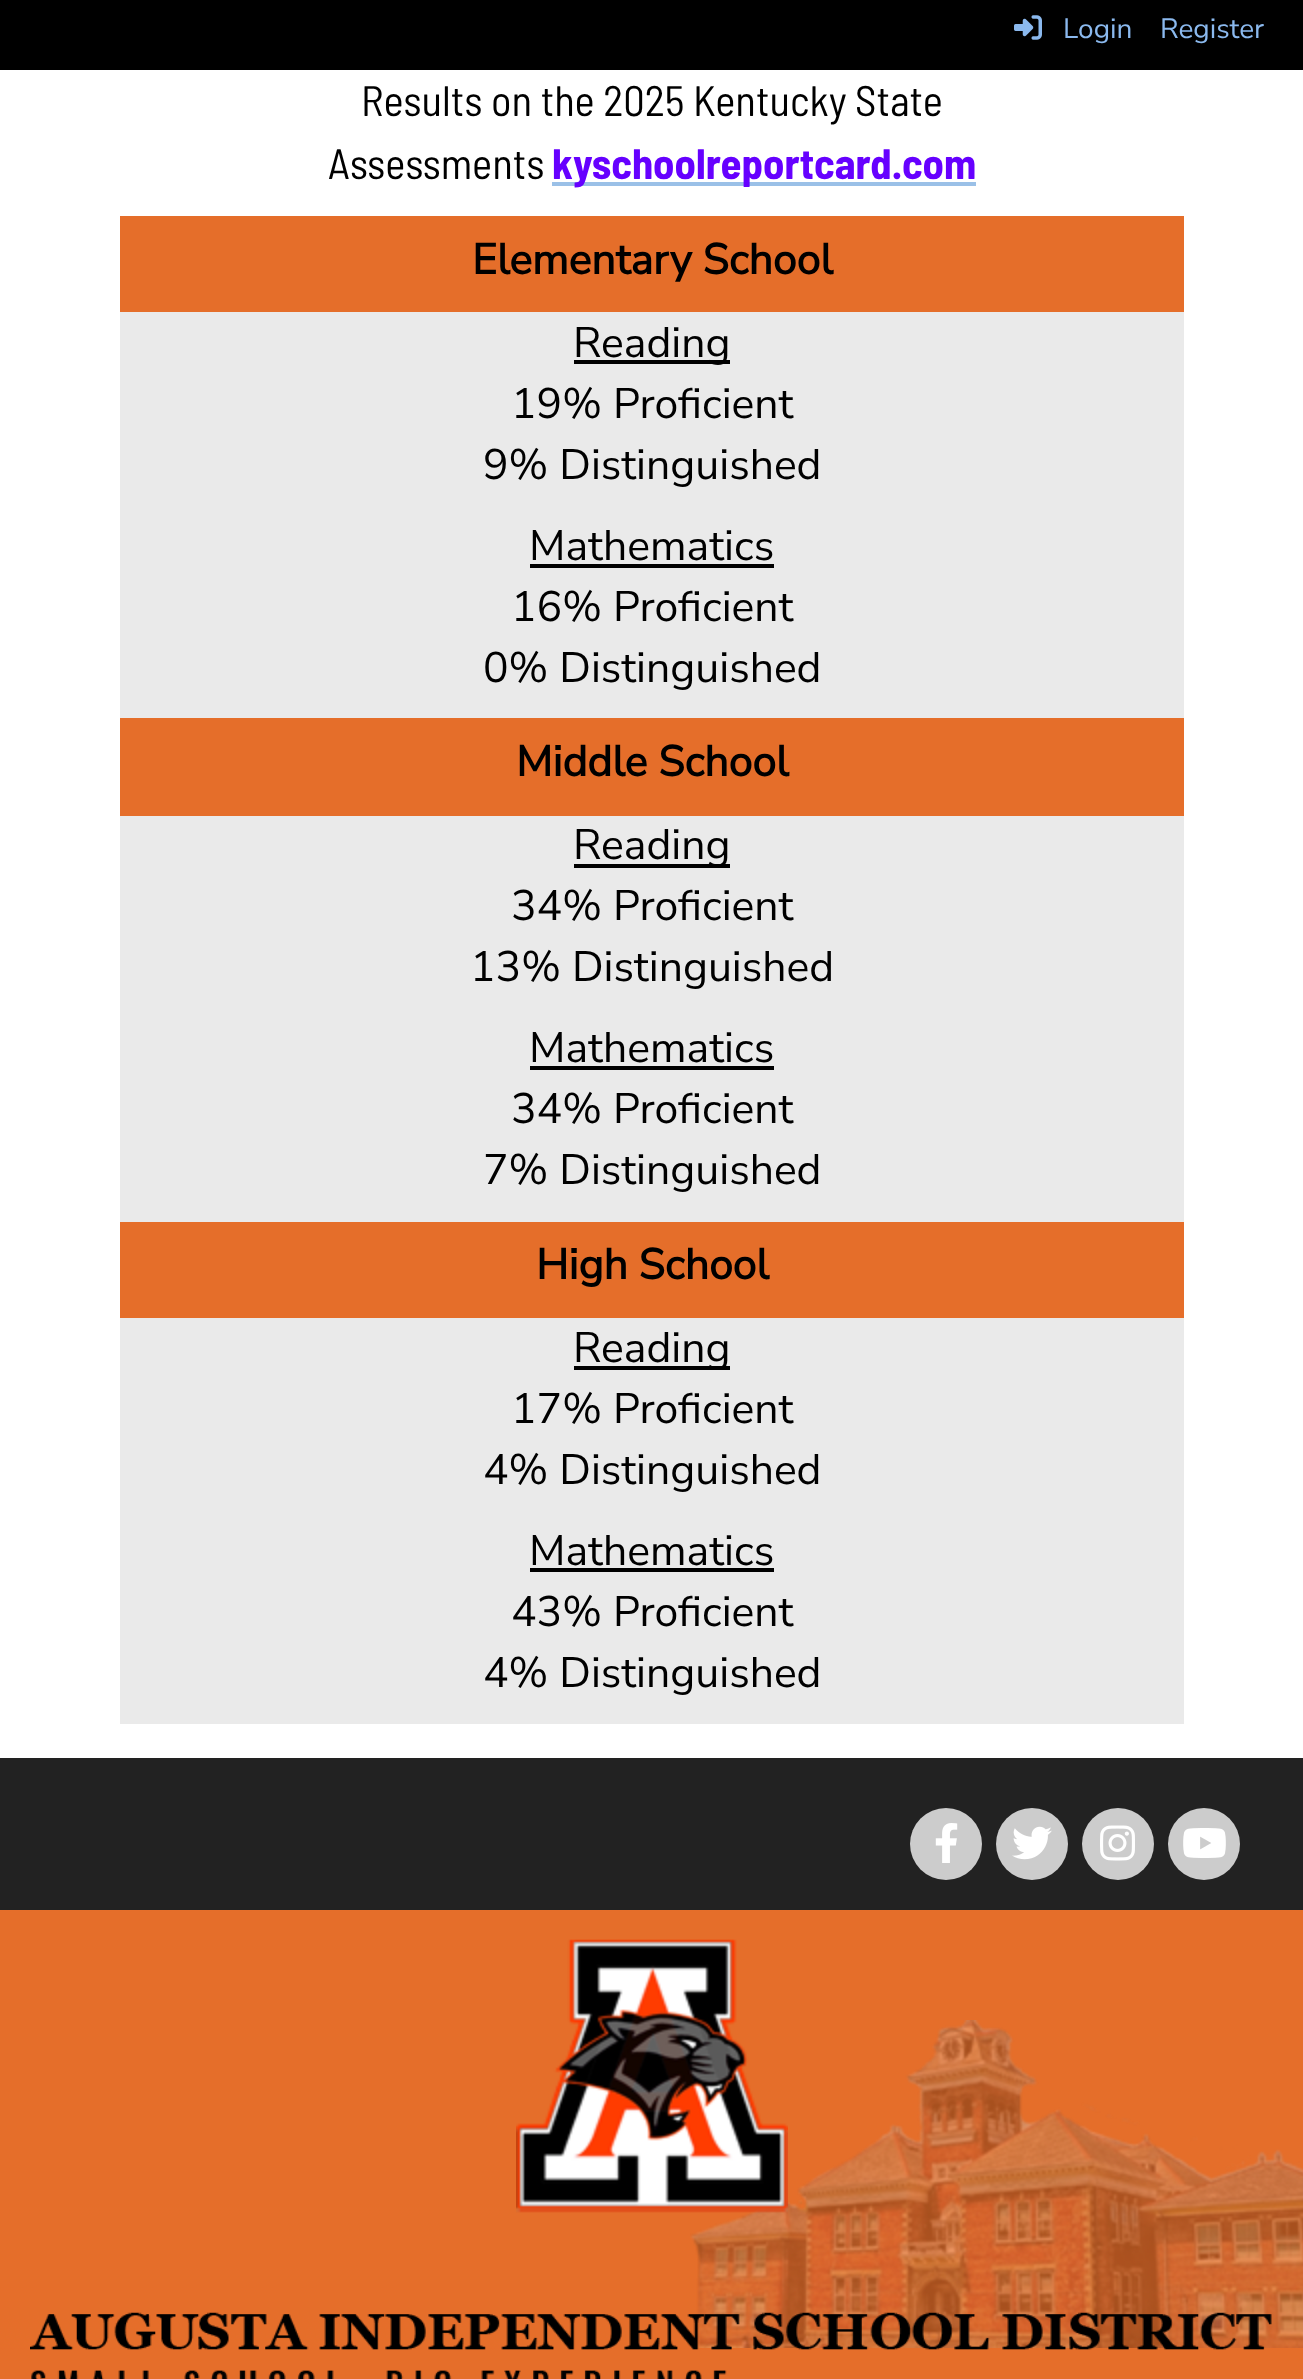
<svg xmlns="http://www.w3.org/2000/svg" width="1303" height="2379">
	<rect width="100%" height="100%" fill="#000000" />
	<image x="1014" y="15" width="28" height="25" href="assets/img1.png" />
	<g font-family="Nunito Sans" font-size="28" font-weight="200" fill="#8BB9EE">
		<text x="1063" y="38">Login</text>
		<text x="1160" y="38">Register</text>
	</g>
	<rect x="0" y="1758" width="1303" height="152" fill="#222222" />
	<rect x="0" y="70" width="1303" height="1688" fill="#FFFFFF" />
	<g font-family="Barlow Semi Condensed" font-size="42.7" fill="#000000">
		<text x="361" y="116">Results on the 2025 Kentucky State</text>
		<text x="328" y="179">Assessments</text>
	</g>
	<rect x="552" y="182" width="424" height="4" fill="#9AC0E7" />
	<text x="552" y="179" font-family="Barlow Semi Condensed" font-size="42.7" font-weight="700" fill="#6600FF">kyschoolreportcard.com</text>
	<rect x="120" y="216" width="1064" height="96" fill="#E56E2A" />
	<text x="472" y="274" font-family="Nunito Sans" font-size="42.7" font-weight="700" fill="#000000">Elementary School</text>
	<rect x="120" y="312" width="1064" height="406" fill="#EAEAEA" />
	<rect x="574" y="360" width="156" height="4" fill="#000000" />
	<g font-family="Nunito Sans" font-size="42.7" font-weight="200" fill="#000000">
		<text x="573" y="357">Reading</text>
		<text x="511" y="418">19% Proficient</text>
		<text x="483" y="479">9% Distinguished</text>
		<text x="529" y="560">Mathematics</text>
	</g>
	<rect x="530" y="564" width="244" height="4" fill="#000000" />
	<g font-family="Nunito Sans" font-size="42.7" font-weight="200" fill="#000000">
		<text x="511" y="621">16% Proficient</text>
		<text x="483" y="682">0% Distinguished</text>
	</g>
	<rect x="120" y="718" width="1064" height="98" fill="#E56E2A" />
	<text x="516" y="776" font-family="Nunito Sans" font-size="42.7" font-weight="700" fill="#000000">Middle School</text>
	<rect x="120" y="816" width="1064" height="406" fill="#EAEAEA" />
	<rect x="574" y="864" width="156" height="4" fill="#000000" />
	<g font-family="Nunito Sans" font-size="42.7" font-weight="200" fill="#000000">
		<text x="573" y="859">Reading</text>
		<text x="511" y="920">34% Proficient</text>
		<text x="470" y="981">13% Distinguished</text>
		<text x="529" y="1062">Mathematics</text>
	</g>
	<rect x="530" y="1066" width="244" height="4" fill="#000000" />
	<g font-family="Nunito Sans" font-size="42.7" font-weight="200" fill="#000000">
		<text x="511" y="1123">34% Proficient</text>
		<text x="483" y="1184">7% Distinguished</text>
	</g>
	<rect x="120" y="1222" width="1064" height="96" fill="#E56E2A" />
	<text x="536" y="1279" font-family="Nunito Sans" font-size="42.7" font-weight="700" fill="#000000">High School</text>
	<rect x="120" y="1318" width="1064" height="406" fill="#EAEAEA" />
	<rect x="574" y="1366" width="156" height="4" fill="#000000" />
	<g font-family="Nunito Sans" font-size="42.7" font-weight="200" fill="#000000">
		<text x="573" y="1362">Reading</text>
		<text x="511" y="1423">17% Proficient</text>
		<text x="483" y="1484">4% Distinguished</text>
		<text x="529" y="1565">Mathematics</text>
	</g>
	<rect x="530" y="1568" width="244" height="4" fill="#000000" />
	<g font-family="Nunito Sans" font-size="42.7" font-weight="200" fill="#000000">
		<text x="511" y="1626">43% Proficient</text>
		<text x="483" y="1687">4% Distinguished</text>
	</g>
	<circle cx="946" cy="1844" r="36" fill="#CCCCCC" />
	<image x="935" y="1823" width="23" height="40" href="assets/img2.png" />
	<circle cx="1032" cy="1844" r="36" fill="#CCCCCC" />
	<image x="1012" y="1826" width="40" height="34" href="assets/img3.png" />
	<circle cx="1118" cy="1844" r="36" fill="#CCCCCC" />
	<image x="1100" y="1825" width="35" height="36" href="assets/img4.png" />
	<circle cx="1204" cy="1844" r="36" fill="#CCCCCC" />
	<image x="1183" y="1828" width="43" height="30" href="assets/img5.png" />
	<rect x="0" y="1910" width="1303" height="469" fill="#E56E2A" />
	<image x="690" y="2020" width="613" height="328" href="assets/img6.png" />
	<image x="516" y="1939" width="272" height="274" href="assets/img7.png" />
	<image x="30" y="2312" width="1242" height="67" href="assets/img8.png" />
</svg>
